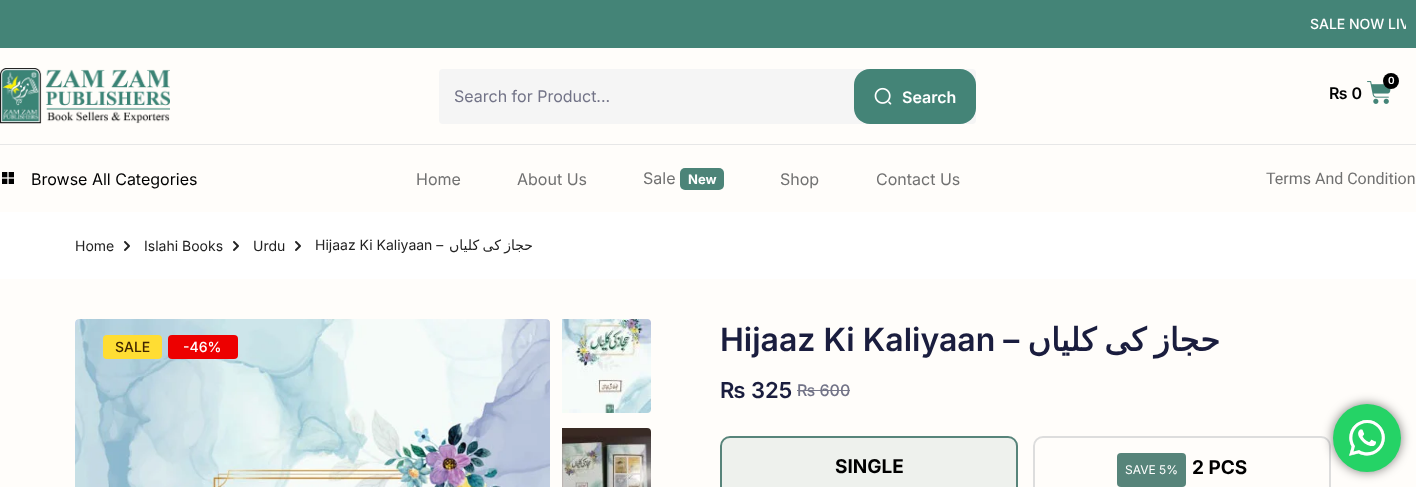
<svg xmlns="http://www.w3.org/2000/svg" width="1416" height="487">
	<defs>
		<clipPath id="clip1"><rect x="10" y="10" width="1396" height="28" /></clipPath>
	</defs>
	<rect width="100%" height="100%" fill="#FFFDFA" />
	<rect x="0" y="0" width="1416" height="48" fill="#448477" />
	<g clip-path="url(#clip1)">
		<text x="1310" y="29" font-family="Inter" font-size="14" font-weight="500" fill="#FFFFFF">SALE NOW LIV</text>
	</g>
	<rect x="0" y="144" width="1416" height="1" fill="#E7E7E7" />
	<image x="0" y="68" width="170" height="56" href="assets/img1.png" />
	<rect x="439" y="69" width="537" height="55" rx="4" fill="#F5F5F5" />
	<text x="454" y="102" font-family="Inter" font-size="16" fill="#727387">Search for Product...</text>
	<rect x="854" y="69" width="122" height="55" rx="16" fill="#448477" />
	<image x="874" y="87" width="18" height="18" href="assets/img2.png" />
	<text x="902" y="103" font-family="Inter" font-size="16" font-weight="600" fill="#FFFFFF">Search</text>
	<image x="1367" y="81" width="24" height="23" href="assets/img3.png" />
	<circle cx="1391" cy="81" r="8" fill="#000000" />
	<text x="1388" y="84" font-family="Inter" font-size="10" font-weight="600" fill="#FFFFFF">0</text>
	<text x="1329" y="99" font-family="Inter" font-size="16" font-weight="600" fill="#000000">₨ 0</text>
	<image x="2" y="172" width="12" height="12" href="assets/img4.png" />
	<text x="31" y="185" font-family="Inter" font-size="16" fill="#000000">Browse All Categories</text>
	<g font-family="Inter" font-size="16" fill="#717171">
		<text x="416" y="185">Home</text>
		<text x="517" y="185">About Us</text>
		<text x="643" y="184">Sale</text>
	</g>
	<rect x="680" y="168" width="44" height="22" rx="5" fill="#4C8478" />
	<text x="688" y="184" font-family="Inter" font-size="13" font-weight="700" fill="#FFFFFF">New</text>
	<g font-family="Inter" font-size="16" fill="#717171">
		<text x="780" y="185">Shop</text>
		<text x="876" y="185">Contact Us</text>
	</g>
	<text x="1266" y="184" font-family="Roboto" font-size="16" fill="#717171">Terms And Condition</text>
	<rect x="0" y="212" width="1416" height="67" fill="#FFFFFF" />
	<text x="75" y="251" font-family="Inter" font-size="14" fill="#222222">Home</text>
	<image x="124" y="241" width="6" height="10" href="assets/img5.png" />
	<text x="144" y="251" font-family="Inter" font-size="14" fill="#222222">Islahi Books</text>
	<image x="233" y="241" width="6" height="10" href="assets/img5.png" />
	<text x="253" y="251" font-family="Inter" font-size="14" fill="#222222">Urdu</text>
	<image x="295" y="241" width="6" height="10" href="assets/img5.png" />
	<text x="315" y="250" font-family="Inter" font-size="14" fill="#222222">Hijaaz Ki Kaliyaan –</text>
	<text x="533" y="250" word-spacing="-1" font-family="DejaVu Sans" font-size="14" direction="rtl" fill="#222222">حجاز کی کلیاں</text>
	<image x="75" y="319" width="475" height="168" href="assets/img6.png" />
	<rect x="103" y="335" width="59" height="24" rx="4" fill="#FFDD33" />
	<text x="115" y="352" font-family="Inter" font-size="14" font-weight="500" fill="#402500">SALE</text>
	<rect x="168" y="335" width="70" height="24" rx="4" fill="#ED0000" />
	<text x="183" y="352" font-family="Inter" font-size="14" font-weight="500" fill="#FFFFFF">-46%</text>
	<image x="562" y="319" width="89" height="94" href="assets/img7.png" />
	<image x="562" y="428" width="89" height="59" href="assets/img8.png" />
	<text x="720" y="351" font-family="Inter" font-size="32" font-weight="600" fill="#1A1D3E">Hijaaz Ki Kaliyaan –</text>
	<text x="1220" y="351" word-spacing="-2" font-family="DejaVu Sans" font-size="32" font-weight="700" direction="rtl" fill="#1A1D3E">حجاز کی کلیاں</text>
	<text x="720" y="398" font-family="Inter" font-size="22" font-weight="600" fill="#1A1D3E">₨ 325</text>
	<text x="797" y="396" font-family="Inter" font-size="16" font-weight="500" fill="#727387">₨ 600</text>
	<rect x="797" y="390" width="53" height="1" fill="#767789" />
	<rect x="721" y="437" width="296" height="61" rx="9" fill="#EEF1ED" stroke="#57847A" stroke-width="2" />
	<text x="835" y="473" font-family="Inter" font-size="19" font-weight="700" fill="#000000">SINGLE</text>
	<rect x="1034" y="437" width="296" height="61" rx="9" fill="none" stroke="#DDDDDD" stroke-width="2" />
	<rect x="1117" y="453" width="69" height="34" rx="4" fill="#57847A" />
	<text x="1125" y="474" font-family="Inter" font-size="12" fill="#FFFFFF">SAVE 5%</text>
	<text x="1192" y="474" font-family="Inter" font-size="19" font-weight="700" fill="#000000">2 PCS</text>
	<rect x="1333" y="404" width="68" height="68" rx="34" fill="#000000" fill-opacity="0.5" filter="blur(5.5px)" />
	<circle cx="1367" cy="438" r="34" fill="#25D366" />
	<image x="1349" y="420" width="36" height="36" href="assets/img9.png" />
</svg>
